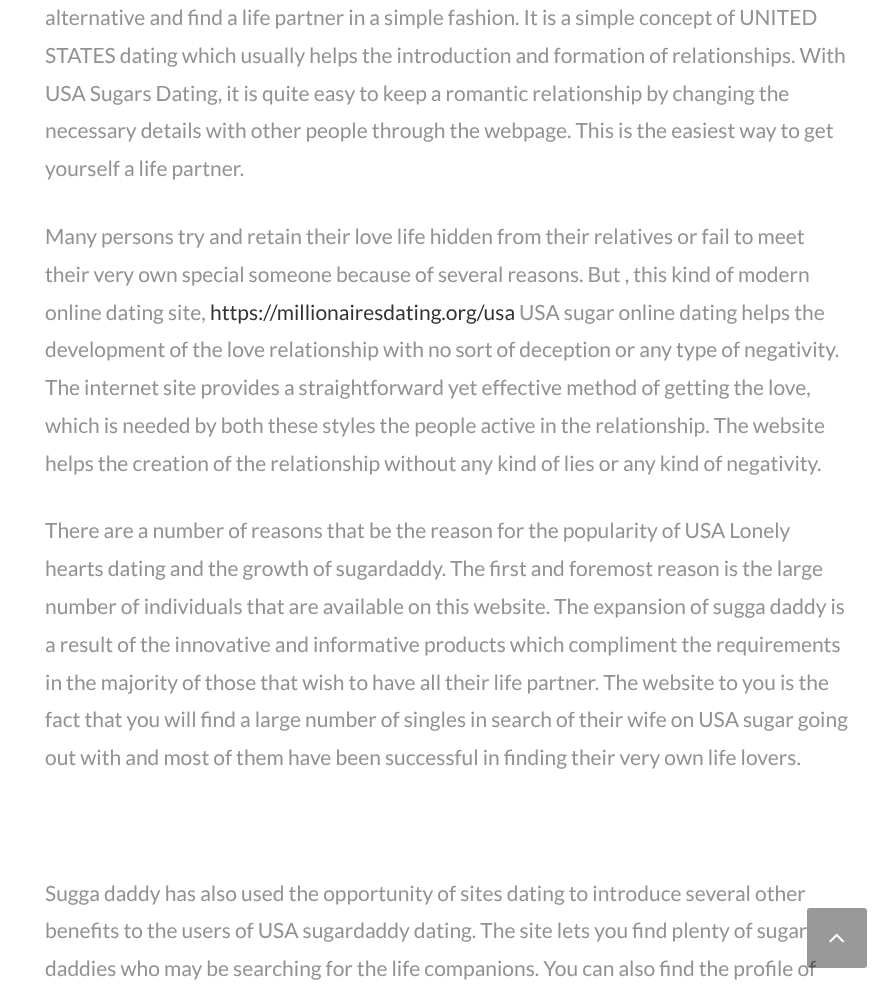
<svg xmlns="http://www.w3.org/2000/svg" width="896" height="997">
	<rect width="100%" height="100%" fill="#FFFFFF" />
	<g font-family="Lato" font-size="21" fill="#929292">
		<text x="45" y="25">alternative and find a life partner in a simple fashion. It is a simple concept of UNITED</text>
		<text x="45" y="63">STATES dating which usually helps the introduction and formation of relationships. With</text>
		<text x="45" y="101">USA Sugars Dating, it is quite easy to keep a romantic relationship by changing the</text>
		<text x="45" y="138">necessary details with other people through the webpage. This is the easiest way to get</text>
		<text x="45" y="176">yourself a life partner.</text>
		<text x="45" y="244">Many persons try and retain their love life hidden from their relatives or fail to meet</text>
		<text x="45" y="282">their very own special someone because of several reasons. But , this kind of modern</text>
		<text x="45" y="320">online dating site,</text>
	</g>
	<text x="210" y="320" font-family="Lato" font-size="21" fill="#333333">https://millionairesdating.org/usa</text>
	<g font-family="Lato" font-size="21" fill="#929292">
		<text x="519" y="320">USA sugar online dating helps the</text>
		<text x="45" y="357">development of the love relationship with no sort of deception or any type of negativity.</text>
		<text x="45" y="395">The internet site provides a straightforward yet effective method of getting the love,</text>
		<text x="45" y="433">which is needed by both these styles the people active in the relationship. The website</text>
		<text x="45" y="471">helps the creation of the relationship without any kind of lies or any kind of negativity.</text>
		<text x="45" y="538">There are a number of reasons that be the reason for the popularity of USA Lonely</text>
		<text x="45" y="576">hearts dating and the growth of sugardaddy. The first and foremost reason is the large</text>
		<text x="45" y="614">number of individuals that are available on this website. The expansion of sugga daddy is</text>
		<text x="45" y="652">a result of the innovative and informative products which compliment the requirements</text>
		<text x="45" y="690">in the majority of those that wish to have all their life partner. The website to you is the</text>
		<text x="45" y="727">fact that you will find a large number of singles in search of their wife on USA sugar going</text>
		<text x="45" y="765">out with and most of them have been successful in finding their very own life lovers.</text>
		<text x="45" y="901">Sugga daddy has also used the opportunity of sites dating to introduce several other</text>
		<text x="45" y="938">benefits to the users of USA sugardaddy dating. The site lets you find plenty of sugar</text>
		<text x="45" y="976">daddies who may be searching for the life companions. You can also find the profile of</text>
	</g>
	<rect x="807" y="908" width="60" height="60" rx="3" fill="#000000" fill-opacity="0.4" />
	<image x="829" y="933" width="16" height="10" href="assets/img1.png" />
</svg>
